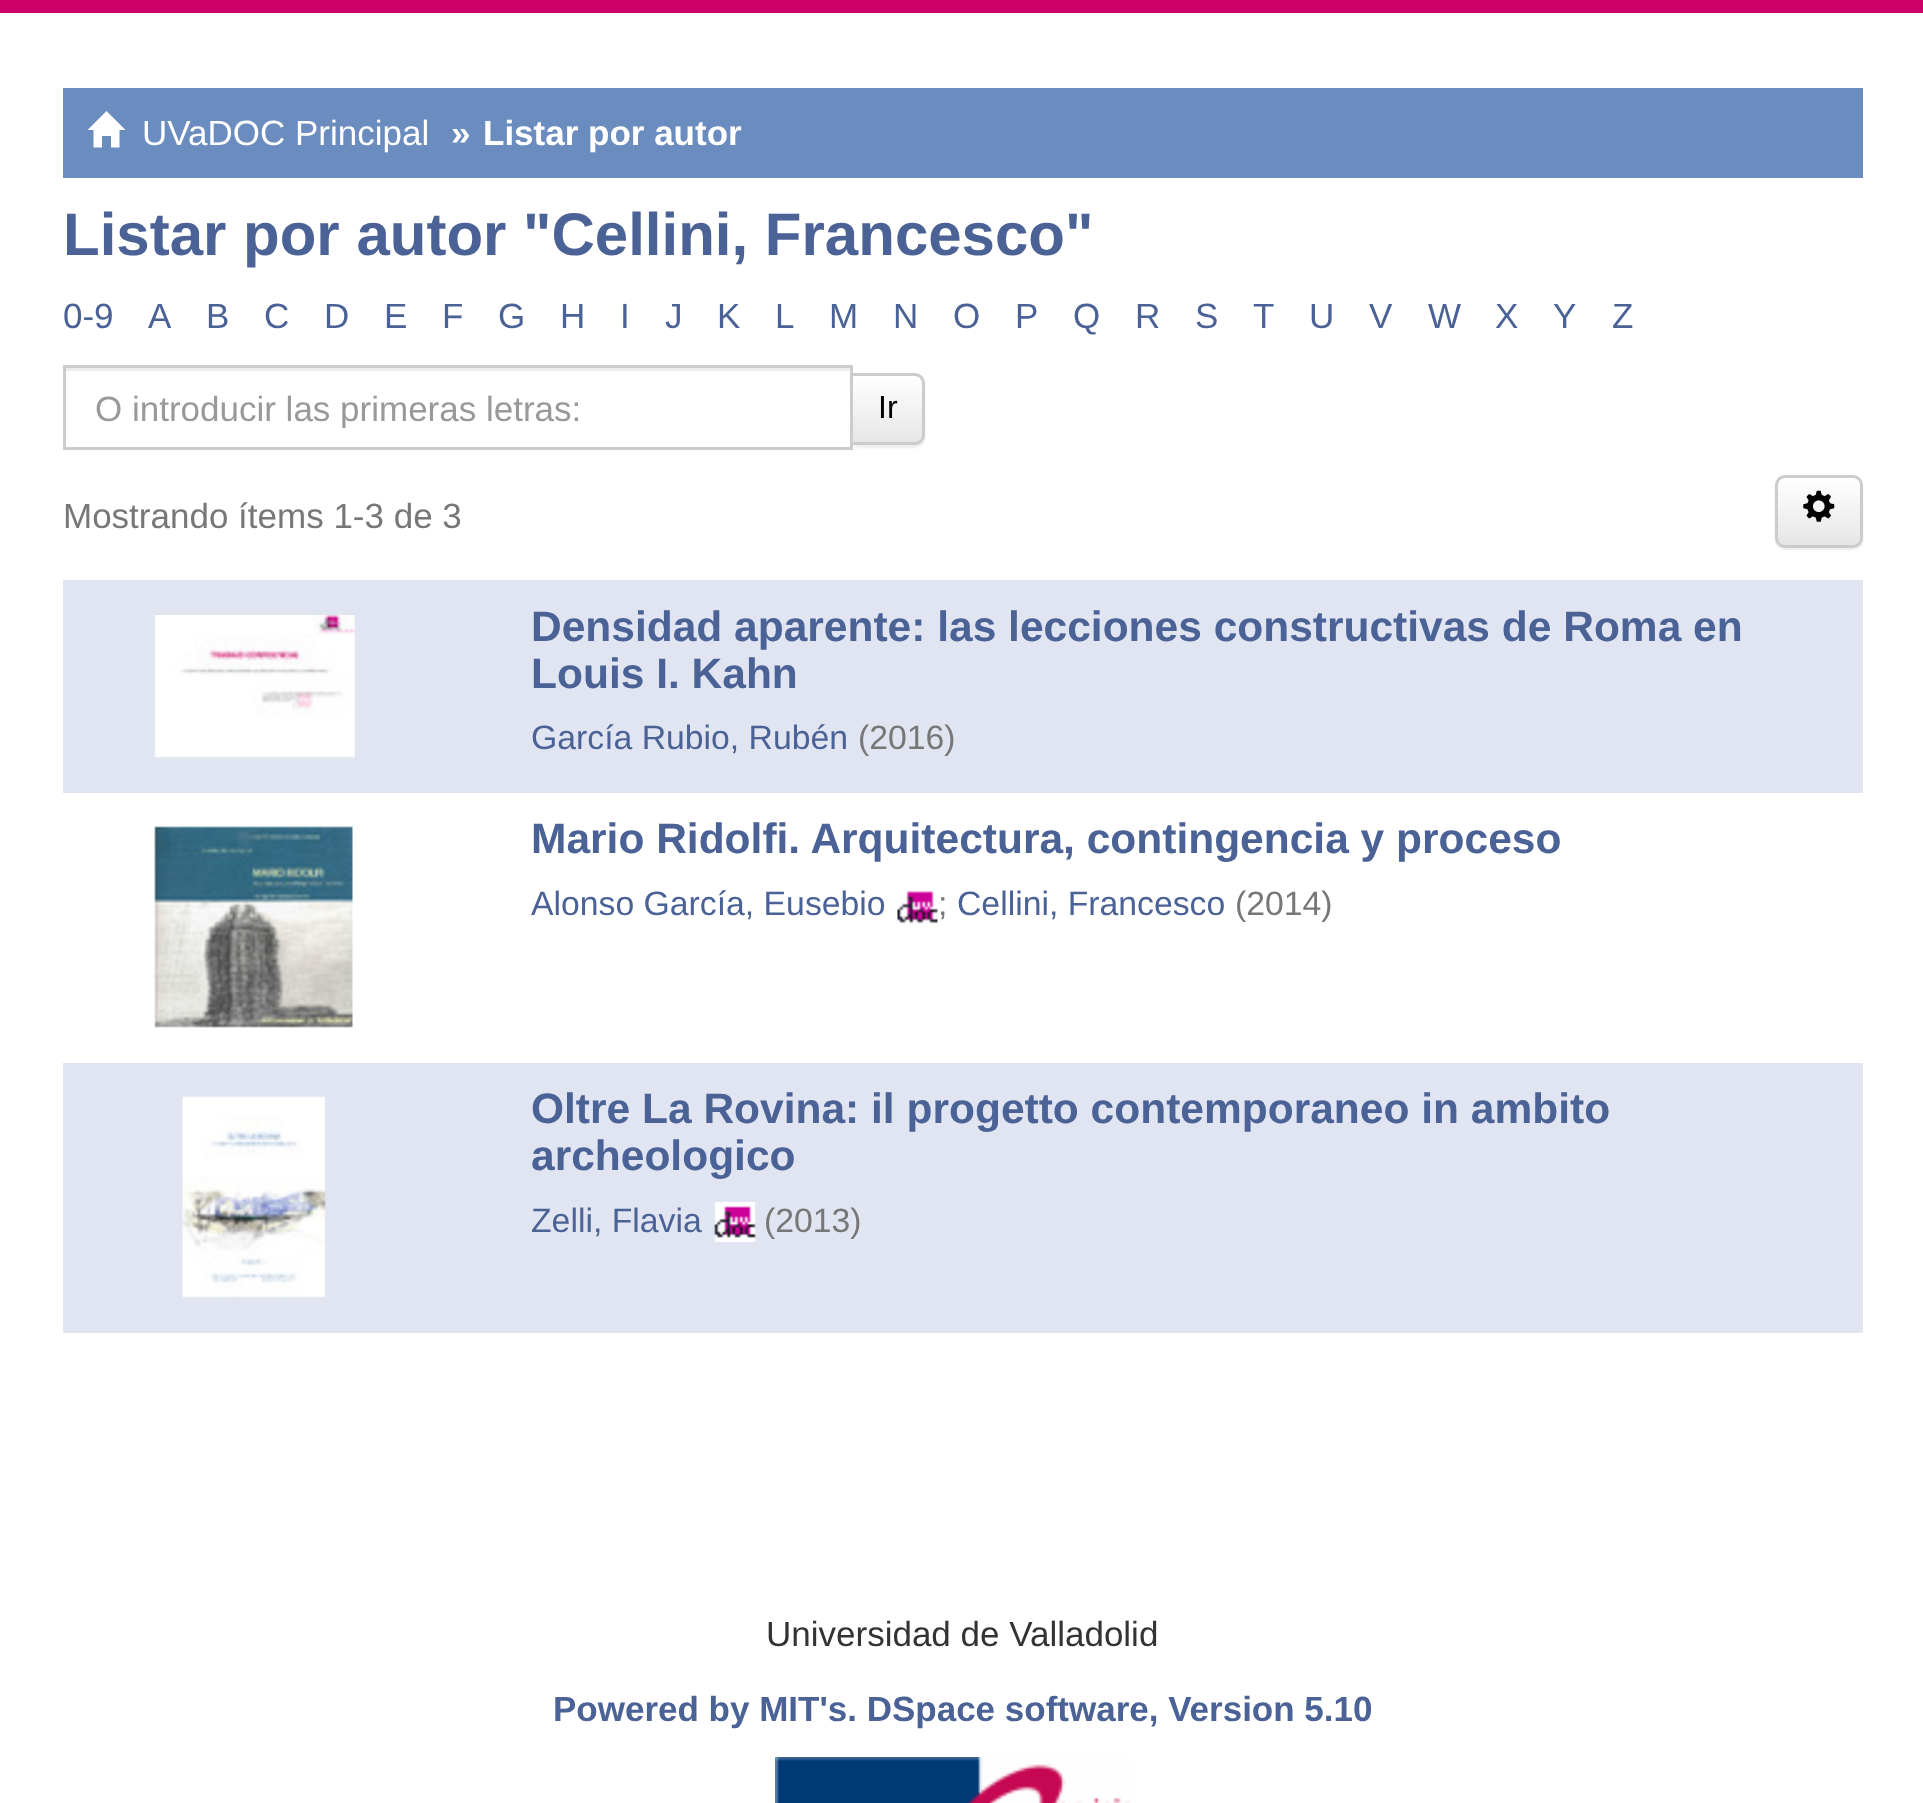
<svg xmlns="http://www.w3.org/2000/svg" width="1923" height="1803">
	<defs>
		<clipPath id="clip1"><path d="M850 373H915C920.5 373 925 377.5 925 383V435C925 440.5 920.5 445 915 445H850Z" /></clipPath>
		<linearGradient id="g1" gradientUnits="userSpaceOnUse" x1="888" y1="375" x2="888" y2="443"><stop offset="0" stop-color="#FFFFFF" /><stop offset="1" stop-color="#E6E6E6" /></linearGradient>
		<clipPath id="clip2"><rect x="95" y="388" width="725" height="40" /></clipPath>
		<clipPath id="clip3"><rect x="1775" y="475" width="88" height="73" rx="10" /></clipPath>
		<linearGradient id="g2" gradientUnits="userSpaceOnUse" x1="1819" y1="478" x2="1819" y2="545"><stop offset="0" stop-color="#FFFFFF" /><stop offset="1" stop-color="#E6E6E6" /></linearGradient>
	</defs>
	<rect width="100%" height="100%" fill="#FFFFFF" />
	<rect x="0" y="0" width="1923" height="13" fill="#CC0066" />
	<rect x="63" y="88" width="1800" height="90" fill="#6A8CBE" />
	<path d="M87.5 130L106.5 111L125.5 130H119.5V147.5H111V136H102V147.5H93.5V130Z" fill="#FFFFFF" />
	<text x="142" y="145" font-family="Liberation Sans" font-size="35" fill="#FFFFFF">UVaDOC Principal</text>
	<g font-family="Liberation Sans" font-size="35" font-weight="700" fill="#FFFFFF">
		<text x="451" y="145">»</text>
		<text x="483" y="145">Listar por autor</text>
	</g>
	<text x="63" y="255" font-family="Liberation Sans" font-size="60" font-weight="700" fill="#4B6296">Listar por autor "Cellini, Francesco"</text>
	<g font-family="Liberation Sans" font-size="35" fill="#4B6296">
		<text x="63" y="328">0-9</text>
		<text x="148" y="328">A</text>
		<text x="206" y="328">B</text>
		<text x="264" y="328">C</text>
		<text x="324" y="328">D</text>
		<text x="384" y="328">E</text>
		<text x="442" y="328">F</text>
		<text x="498" y="328">G</text>
		<text x="560" y="328">H</text>
		<text x="620" y="328">I</text>
		<text x="665" y="328">J</text>
		<text x="717" y="328">K</text>
		<text x="775" y="328">L</text>
		<text x="829" y="328">M</text>
		<text x="893" y="328">N</text>
		<text x="953" y="328">O</text>
		<text x="1015" y="328">P</text>
		<text x="1073" y="328">Q</text>
		<text x="1135" y="328">R</text>
		<text x="1195" y="328">S</text>
		<text x="1253" y="328">T</text>
		<text x="1309" y="328">U</text>
		<text x="1369" y="328">V</text>
		<text x="1428" y="328">W</text>
		<text x="1495" y="328">X</text>
		<text x="1553" y="328">Y</text>
		<text x="1612" y="328">Z</text>
	</g>
	<rect x="850" y="375" width="75" height="73" rx="10" fill="#000000" fill-opacity="0.07" filter="blur(1px)" />
	<rect x="849" y="382" width="1" height="59" fill="#FFFFFF" />
	<rect x="65" y="368" width="785" height="3" fill="#ECECEC" />
	<g clip-path="url(#clip1)">
		<rect x="853" y="375" width="72" height="68" fill="url(#g1)" />
	</g>
	<path d="M853 375V378H916C924 380 922 389 922 394V439C923 438 923 436 923 435V383C923 379 919 375 915 375Z" fill="#FFFFFF" fill-opacity="0.15" />
	<path d="M851.5 374.5H915C919.5 374.5 923.5 378.5 923.5 383V435C923.5 439.5 919.5 443.5 915 443.5H851.5Z" fill="none" stroke="#CCCCCC" stroke-width="3" />
	<rect x="64.5" y="366.5" width="787" height="82" fill="none" stroke="#CCCCCC" stroke-width="3" />
	<g clip-path="url(#clip2)">
		<text x="95" y="421" font-family="Liberation Sans" font-size="35" fill="#999999">O introducir las primeras letras:</text>
	</g>
	<text x="878" y="418" font-family="Liberation Sans" font-size="32" fill="#000000">Ir</text>
	<text x="63" y="528" font-family="Liberation Sans" font-size="35" fill="#777777">Mostrando ítems 1-3 de 3</text>
	<rect x="1775" y="478" width="88" height="72" rx="10" fill="#000000" fill-opacity="0.07" filter="blur(1px)" />
	<g clip-path="url(#clip3)">
		<rect x="1775" y="478" width="88" height="67" fill="url(#g2)" />
	</g>
	<rect x="1776.5" y="476.5" width="85" height="70" rx="8.5" fill="none" stroke="#CCCCCC" stroke-width="3" />
	<image x="1803" y="490" width="32" height="32" href="assets/img1.png" />
	<rect x="63" y="580" width="1800" height="213" fill="#E0E5F1" />
	<image x="154" y="615" width="201" height="143" href="assets/img2.png" />
	<g font-family="Liberation Sans" font-size="42.5" font-weight="700" fill="#4B6296">
		<text x="531" y="641">Densidad aparente: las lecciones constructivas de Roma en</text>
		<text x="531" y="688">Louis I. Kahn</text>
	</g>
	<text x="531" y="749" font-family="Liberation Sans" font-size="33.75" fill="#4B6296">García Rubio, Rubén</text>
	<text x="858" y="749" font-family="Liberation Sans" font-size="33.75" fill="#777777">(2016)</text>
	<image x="154" y="826" width="199" height="202" href="assets/img3.png" />
	<text x="531" y="853" font-family="Liberation Sans" font-size="42.5" font-weight="700" fill="#4B6296">Mario Ridolfi. Arquitectura, contingencia y proceso</text>
	<text x="531" y="915" font-family="Liberation Sans" font-size="33.75" fill="#4B6296">Alonso García, Eusebio</text>
	<image x="897" y="890" width="41" height="34" href="assets/img4.png" />
	<text x="938" y="915" font-family="Liberation Sans" font-size="33.75" fill="#777777">;</text>
	<text x="957" y="915" font-family="Liberation Sans" font-size="33.75" fill="#4B6296">Cellini, Francesco</text>
	<text x="1235" y="915" font-family="Liberation Sans" font-size="33.75" fill="#777777">(2014)</text>
	<rect x="63" y="1063" width="1800" height="270" fill="#E0E5F1" />
	<image x="182" y="1096" width="144" height="202" href="assets/img5.png" />
	<g font-family="Liberation Sans" font-size="42.5" font-weight="700" fill="#4B6296">
		<text x="531" y="1123">Oltre La Rovina: il progetto contemporaneo in ambito</text>
		<text x="531" y="1170">archeologico</text>
	</g>
	<text x="531" y="1232" font-family="Liberation Sans" font-size="33.75" fill="#4B6296">Zelli, Flavia</text>
	<image x="714" y="1202" width="42" height="40" href="assets/img6.png" />
	<text x="764" y="1232" font-family="Liberation Sans" font-size="33.75" fill="#777777">(2013)</text>
	<text x="766" y="1646" font-family="Liberation Sans" font-size="35" fill="#333333">Universidad de Valladolid</text>
	<text x="553" y="1721" font-family="Liberation Sans" font-size="35" font-weight="700" fill="#4B6296">Powered by MIT's. DSpace software, Version 5.10</text>
	<image x="775" y="1757" width="356" height="46" href="assets/img7.png" />
</svg>
